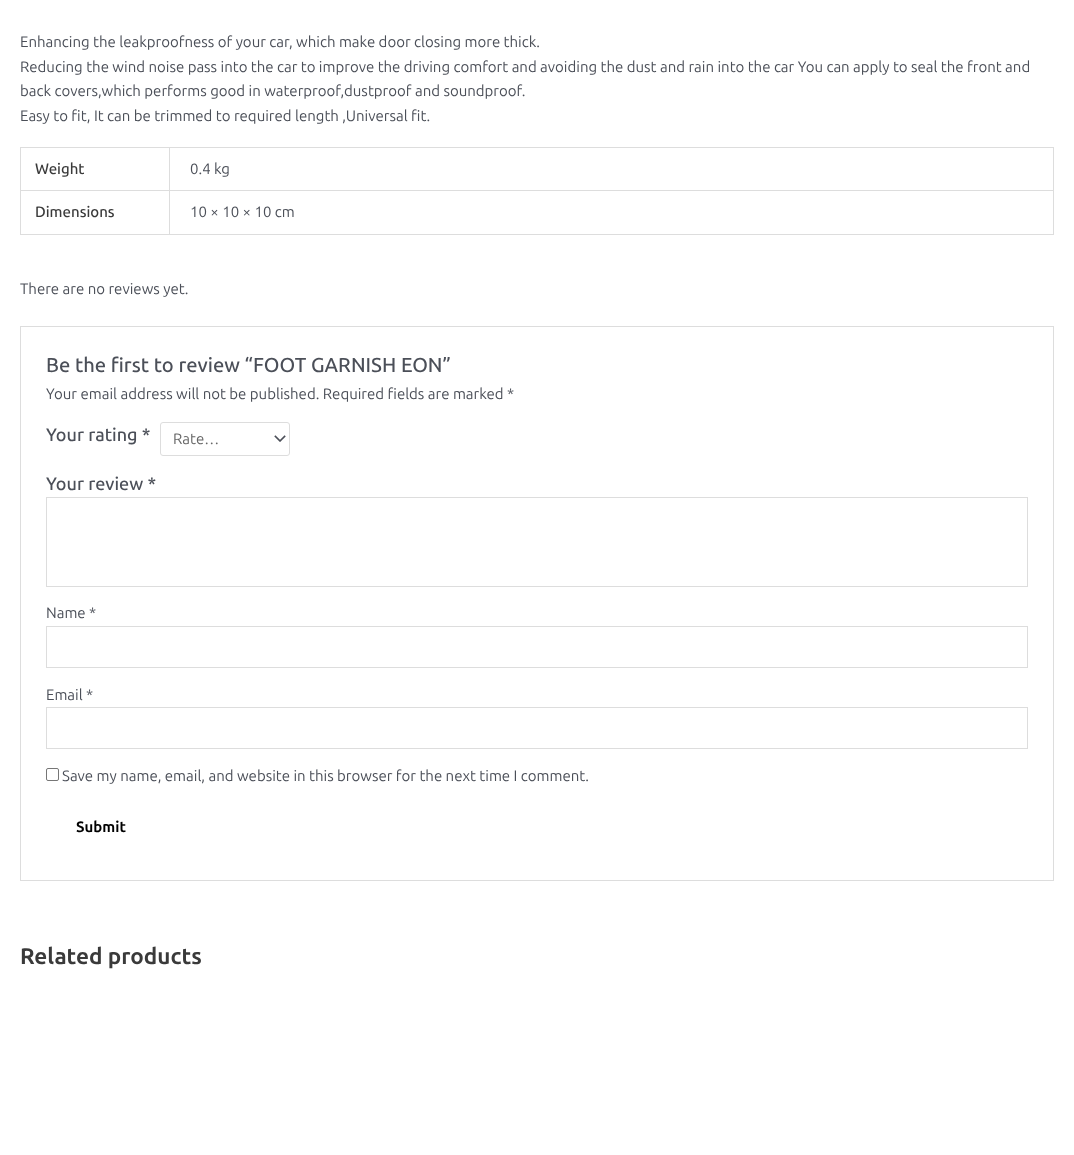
<svg xmlns="http://www.w3.org/2000/svg" width="1074" height="1155">
	<rect width="100%" height="100%" fill="#FFFFFF" />
	<g font-family="Ubuntu" font-size="15" fill="#4B4F58">
		<text x="20" y="47">Enhancing the leakproofness of your car, which make door closing more thick.</text>
		<text x="20" y="72">Reducing the wind noise pass into the car to improve the driving comfort and avoiding the dust and rain into the car You can apply to seal the front and</text>
		<text x="20" y="96">back covers,which performs good in waterproof,dustproof and soundproof.</text>
		<text x="20" y="121">Easy to fit, It can be trimmed to required length ,Universal fit.</text>
	</g>
	<rect x="20" y="147" width="1034" height="1" fill="#DDDDDD" />
	<rect x="169" y="148" width="1" height="87" fill="#DDDDDD" />
	<rect x="20" y="190" width="150" height="1" fill="#DDDDDD" />
	<rect x="20" y="148" width="1" height="43" fill="#DDDDDD" />
	<text x="35" y="174" font-family="Ubuntu" font-size="15" font-weight="500" fill="#3A3A3A">Weight</text>
	<rect x="1053" y="148" width="1" height="87" fill="#DDDDDD" />
	<rect x="170" y="190" width="884" height="1" fill="#DDDDDD" />
	<text x="190" y="174" font-family="Ubuntu" font-size="15" fill="#4B4F58">0.4 kg</text>
	<rect x="20" y="234" width="1034" height="1" fill="#DDDDDD" />
	<rect x="20" y="191" width="1" height="44" fill="#DDDDDD" />
	<text x="35" y="217" font-family="Ubuntu" font-size="15" font-weight="500" fill="#3A3A3A">Dimensions</text>
	<g font-family="Ubuntu" font-size="15" fill="#4B4F58">
		<text x="190" y="217">10 × 10 × 10 cm</text>
		<text x="20" y="294">There are no reviews yet.</text>
	</g>
	<rect x="20.5" y="326.5" width="1033" height="554" fill="none" stroke="#DDDDDD" />
	<text x="46" y="372" font-family="Ubuntu" font-size="20.1" font-weight="500" fill="#4B4F58">Be the first to review “FOOT GARNISH EON”</text>
	<text x="46" y="399" font-family="Ubuntu" font-size="15" fill="#4B4F58">Your email address will not be published. Required fields are marked *</text>
	<text x="46" y="441" font-family="Ubuntu" font-size="18" font-weight="500" fill="#4B4F58">Your rating *</text>
	<image x="274" y="435" width="12" height="7" href="assets/img1.png" />
	<rect x="160.5" y="422.5" width="129" height="33" rx="2.5" fill="none" stroke="#DDDDDD" />
	<text x="173" y="444" font-family="Ubuntu" font-size="15" fill="#666666">Rate…</text>
	<text x="46" y="490" font-family="Ubuntu" font-size="18" font-weight="500" fill="#4B4F58">Your review *</text>
	<rect x="46.5" y="497.5" width="981" height="89" fill="none" stroke="#DDDDDD" />
	<text x="46" y="618" font-family="Ubuntu" font-size="15" fill="#4B4F58">Name *</text>
	<rect x="46.5" y="626.5" width="981" height="41" fill="none" stroke="#DDDDDD" />
	<text x="46" y="700" font-family="Ubuntu" font-size="15" fill="#4B4F58">Email *</text>
	<rect x="46.5" y="707.5" width="981" height="41" fill="none" stroke="#DDDDDD" />
	<rect x="46.5" y="768.5" width="12" height="12" rx="1.5" fill="none" stroke="#767676" />
	<text x="62" y="781" font-family="Ubuntu" font-size="15" fill="#4B4F58">Save my name, email, and website in this browser for the next time I comment.</text>
	<text x="76" y="832" font-family="Ubuntu" font-size="15" font-weight="700" fill="#000000">Submit</text>
	<text x="20" y="964" font-family="Ubuntu" font-size="22.5" font-weight="700" fill="#3A3A3A">Related products</text>
</svg>
